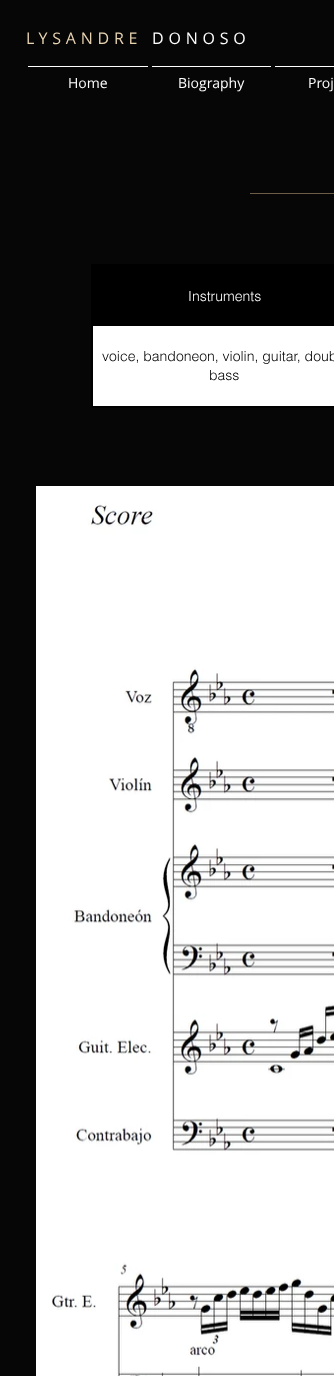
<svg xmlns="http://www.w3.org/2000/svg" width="334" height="1376">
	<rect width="100%" height="100%" fill="#070606" />
	<text x="26" y="44" font-family="Open Sans" font-size="16" letter-spacing="4.75" fill="#E7D3B1">LYSANDRE</text>
	<text x="152" y="44" font-family="Open Sans" font-size="16" letter-spacing="4.75" fill="#FFFFFF">DONOSO</text>
	<rect x="28" y="66" width="120" height="1" fill="#FFFFFF" />
	<text x="68" y="88" font-family="Open Sans" font-size="14" fill="#FFFFFF">Home</text>
	<rect x="152" y="66" width="119" height="1" fill="#FFFFFF" />
	<text x="178" y="88" font-family="Open Sans" font-size="14" fill="#FFFFFF">Biography</text>
	<rect x="275" y="66" width="59" height="1" fill="#FFFFFF" />
	<text x="308" y="88" font-family="Open Sans" font-size="14" fill="#FFFFFF">Proj</text>
	<rect x="250" y="193" width="84" height="1" fill="#6B5D46" />
	<rect x="93" y="326" width="241" height="80" fill="#FFFFFF" />
	<rect x="92" y="265" width="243" height="142" fill="none" stroke="#000000" stroke-width="2" />
	<rect x="93" y="266" width="241" height="60" fill="#000000" />
	<text x="188" y="301" font-family="helvetica" font-size="14" font-weight="300" fill="#FFFFFF">Instruments</text>
	<g font-family="helvetica" font-size="14" font-weight="300" fill="#000000">
		<text x="102" y="361">voice, bandoneon, violin, guitar, doub</text>
		<text x="209" y="380">bass</text>
	</g>
	<image x="36" y="486" width="298" height="890" href="assets/img1.png" />
</svg>
